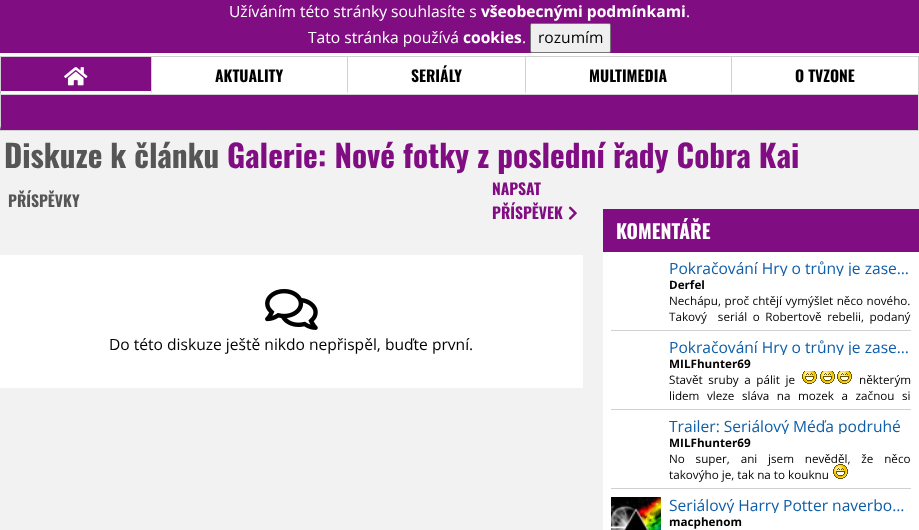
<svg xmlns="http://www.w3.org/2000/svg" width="919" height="530">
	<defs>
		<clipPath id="clip1"><rect x="669" y="260" width="242" height="16" /></clipPath>
		<clipPath id="clip2"><rect x="669" y="339" width="242" height="16" /></clipPath>
		<clipPath id="clip3"><rect x="669" y="418" width="242" height="16" /></clipPath>
		<clipPath id="clip4"><rect x="669" y="497" width="242" height="16" /></clipPath>
	</defs>
	<rect width="100%" height="100%" fill="#F2F2F2" />
	<rect x="0" y="0" width="919" height="53" fill="#800D82" />
	<text x="229" y="17" font-family="Open Sans" font-size="15.6" fill="#FFFFFF">Užíváním této stránky souhlasíte s</text>
	<text x="481" y="17" font-family="Open Sans" font-size="15.6" font-weight="700" fill="#FFFFFF">všeobecnými podmínkami</text>
	<g font-family="Open Sans" font-size="15.6" fill="#FFFFFF">
		<text x="686" y="17">.</text>
		<text x="308" y="43">Tato stránka používá</text>
	</g>
	<text x="463" y="43" font-family="Open Sans" font-size="15.6" font-weight="700" fill="#FFFFFF">cookies</text>
	<text x="522" y="43" font-family="Open Sans" font-size="15.6" fill="#FFFFFF">.</text>
	<rect x="530.5" y="23.5" width="80" height="29" rx="1.5" fill="#EFEFEF" stroke="#767676" />
	<text x="538" y="43" font-family="Open Sans" font-size="15.6" fill="#000000">rozumím</text>
	<rect x="0" y="53" width="919" height="41" fill="#FFFFFF" />
	<rect x="0" y="56" width="919" height="1" fill="#D1D1D1" />
	<rect x="918" y="56" width="1" height="75" fill="#D1D1D1" />
	<rect x="0" y="94" width="919" height="1" fill="#D1D1D1" />
	<rect x="0" y="57" width="151" height="37" fill="#800D82" />
	<path d="M151 94H0L1 91H151Z" fill="#FFFFFF" />
	<path d="M0 94V57H1V91Z" fill="#D1D1D1" />
	<image x="64" y="67" width="24" height="19" href="assets/img1.png" />
	<path d="M151 94V57H152V91Z" fill="#D1D1D1" />
	<text x="215" y="82" font-family="Oswald" font-size="15.6" font-weight="700" fill="#000000">AKTUALITY</text>
	<path d="M347 94V57H348V91Z" fill="#D1D1D1" />
	<text x="411" y="82" font-family="Oswald" font-size="15.6" font-weight="700" fill="#000000">SERIÁLY</text>
	<path d="M525 94V57H526V91Z" fill="#D1D1D1" />
	<text x="589" y="82" font-family="Oswald" font-size="15.6" font-weight="700" fill="#000000">MULTIMEDIA</text>
	<path d="M731 94V57H732V91Z" fill="#D1D1D1" />
	<text x="795" y="82" font-family="Oswald" font-size="15.6" font-weight="700" fill="#000000">O TVZONE</text>
	<rect x="0" y="95" width="918" height="35" fill="#800D82" />
	<rect x="0" y="130" width="919" height="1" fill="#D1D1D1" />
	<path d="M0 130V95H1V126Z" fill="#D1D1D1" />
	<text x="4" y="168" font-family="Oswald" font-size="31.25" font-weight="700" fill="#565656">Diskuze k článku</text>
	<text x="227" y="168" font-family="Oswald" font-size="31.25" font-weight="700" fill="#800D82">Galerie: Nové fotky z poslední řady Cobra Kai</text>
	<text x="8" y="207" font-family="Oswald" font-size="15.6" font-weight="700" fill="#565656">PŘÍSPĚVKY</text>
	<g font-family="Oswald" font-size="15.6" font-weight="700" fill="#800D82">
		<text x="492" y="195">NAPSAT</text>
		<text x="492" y="219">PŘÍSPĚVEK</text>
	</g>
	<image x="568" y="206" width="9" height="14" href="assets/img2.png" />
	<rect x="0" y="255" width="583" height="133" fill="#FFFFFF" />
	<image x="265" y="289" width="53" height="41" href="assets/img3.png" />
	<text x="109" y="350" font-family="Open Sans" font-size="15.6" fill="#000000">Do této diskuze ještě nikdo nepřispěl, buďte první.</text>
	<rect x="603" y="252" width="316" height="278" fill="#FFFFFF" />
	<rect x="603" y="209" width="316" height="43" fill="#800D82" />
	<text x="616" y="239" font-family="Oswald" font-size="19.5" font-weight="700" fill="#FFFFFF">KOMENTÁŘE</text>
	<rect x="611" y="330" width="300" height="1" fill="#D1D1D1" />
	<g clip-path="url(#clip1)">
		<text x="669" y="274" font-family="Open Sans" font-size="15.6" fill="#0F5EA8">Pokračování Hry o trůny je zase…</text>
	</g>
	<text x="669" y="289" font-family="Open Sans" font-size="11.7" font-weight="700" fill="#000000">Derfel</text>
	<g font-family="Open Sans" font-size="11.7" fill="#000000">
		<text x="669" y="305" word-spacing="0.5">Nechápu, proč chtějí vymýšlet něco nového.</text>
		<text x="669" y="321" word-spacing="2.5" xml:space="preserve">Takový  seriál o Robertově rebelii, podaný</text>
	</g>
	<rect x="611" y="409" width="300" height="1" fill="#D1D1D1" />
	<g clip-path="url(#clip2)">
		<text x="669" y="353" font-family="Open Sans" font-size="15.6" fill="#0F5EA8">Pokračování Hry o trůny je zase…</text>
	</g>
	<text x="669" y="368" font-family="Open Sans" font-size="11.7" font-weight="700" fill="#000000">MILFhunter69</text>
	<text x="669" y="384" word-spacing="2.5" font-family="Open Sans" font-size="11.7" fill="#000000">Stavět sruby a pálit je</text>
	<image x="802" y="371" width="15" height="13" href="assets/img4.png" />
	<image x="820" y="371" width="15" height="13" href="assets/img4.png" />
	<image x="837" y="371" width="15" height="13" href="assets/img4.png" />
	<g font-family="Open Sans" font-size="11.7" fill="#000000">
		<text x="859" y="384">některým</text>
		<text x="669" y="400" word-spacing="4.5">lidem vleze sláva na mozek a začnou si</text>
	</g>
	<rect x="611" y="488" width="300" height="1" fill="#D1D1D1" />
	<g clip-path="url(#clip3)">
		<text x="669" y="432" font-family="Open Sans" font-size="15.6" fill="#0F5EA8">Trailer: Seriálový Méďa podruhé</text>
	</g>
	<text x="669" y="447" font-family="Open Sans" font-size="11.7" font-weight="700" fill="#000000">MILFhunter69</text>
	<g font-family="Open Sans" font-size="11.7" fill="#000000">
		<text x="669" y="463" word-spacing="7.75">No super, ani jsem nevěděl, že něco</text>
		<text x="669" y="479">takovýho je, tak na to kouknu</text>
	</g>
	<image x="833" y="464" width="15" height="15" href="assets/img5.png" />
	<image x="611" y="497" width="50" height="33" href="assets/img6.png" />
	<g clip-path="url(#clip4)">
		<text x="669" y="511" font-family="Open Sans" font-size="15.6" fill="#0F5EA8">Seriálový Harry Potter naverbo…</text>
	</g>
	<text x="669" y="526" font-family="Open Sans" font-size="11.7" font-weight="700" fill="#000000">macphenom</text>
</svg>
